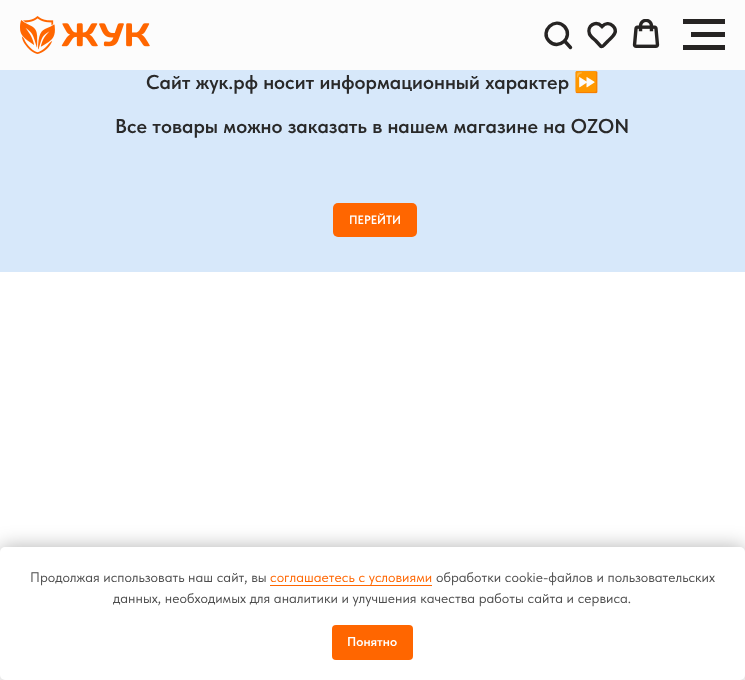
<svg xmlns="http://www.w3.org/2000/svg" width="745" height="680">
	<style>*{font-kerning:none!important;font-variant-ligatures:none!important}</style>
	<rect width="100%" height="100%" fill="#FFFFFF" />
	<rect x="0" y="0" width="745" height="70" fill="#FCFCFC" />
	<image x="20" y="16" width="130" height="38" href="assets/img1.png" />
	<path d="M564.5 26.5C574 37 558.5 51 549 41C539.5 31 555 16.5 564.5 26.5Z" fill="none" stroke="#262423" stroke-width="3.4" />
	<path d="M565.5 42L570.5 47.5M613 26C619 32 612 37 608 41L604.5 44.5C604 45 602.5 47 601 46.5L596 41C594 39 590.5 36.5 589.5 34C586.5 26 595.5 20 602 26.5C605 23.5 609.5 22.5 613 26Z" fill="none" stroke="#262423" stroke-width="3.4" stroke-linecap="round" />
	<image x="632" y="19" width="28" height="29" href="assets/img2.png" />
	<rect x="683" y="19" width="42" height="5" fill="#262423" />
	<rect x="691" y="32" width="34" height="5" fill="#262423" />
	<rect x="683" y="45" width="42" height="5" fill="#262423" />
	<rect x="0" y="70" width="745" height="202" fill="#D7E8FA" />
	<text x="146" y="89" font-family="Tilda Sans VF" font-size="20" font-weight="600" fill="#292929">Сайт жук.рф носит информационный характер</text>
	<text x="574" y="89" font-family="Noto Color Emoji" font-size="20" font-weight="700" fill="#292929">⏩</text>
	<text x="115" y="133" font-family="Tilda Sans VF" font-size="20" font-weight="600" fill="#292929">Все товары можно заказать в нашем магазине на OZON</text>
	<rect x="333" y="203" width="84" height="34" rx="5" fill="#FF6600" />
	<text x="349" y="224" font-family="Tilda Sans VF" font-size="12" font-weight="600" fill="#FFFFFF">ПЕРЕЙТИ</text>
	<rect x="0" y="547" width="745" height="133" rx="5" fill="#000000" fill-opacity="0.3" filter="blur(10px)" />
	<rect x="0" y="547" width="745" height="133" rx="5" fill="#FFFFFF" />
	<text x="30" y="582" font-family="Tilda Sans VF" font-size="14" fill="#4D4D4D">Продолжая использовать наш сайт, вы</text>
	<rect x="270" y="585" width="162" height="1" fill="#FF6600" />
	<text x="270" y="582" font-family="Tilda Sans VF" font-size="14" fill="#FF6600">соглашаетесь с условиями</text>
	<g font-family="Tilda Sans VF" font-size="14" fill="#4D4D4D">
		<text x="436" y="582">обработки cookie-файлов и пользовательских</text>
		<text x="113" y="603">данных, необходимых для аналитики и улучшения качества работы сайта и сервиса.</text>
	</g>
	<rect x="332" y="625" width="81" height="35" rx="4" fill="#FF6600" />
	<text x="347" y="646" font-family="Tilda Sans VF" font-size="13" font-weight="600" fill="#FFFFFF">Понятно</text>
</svg>
